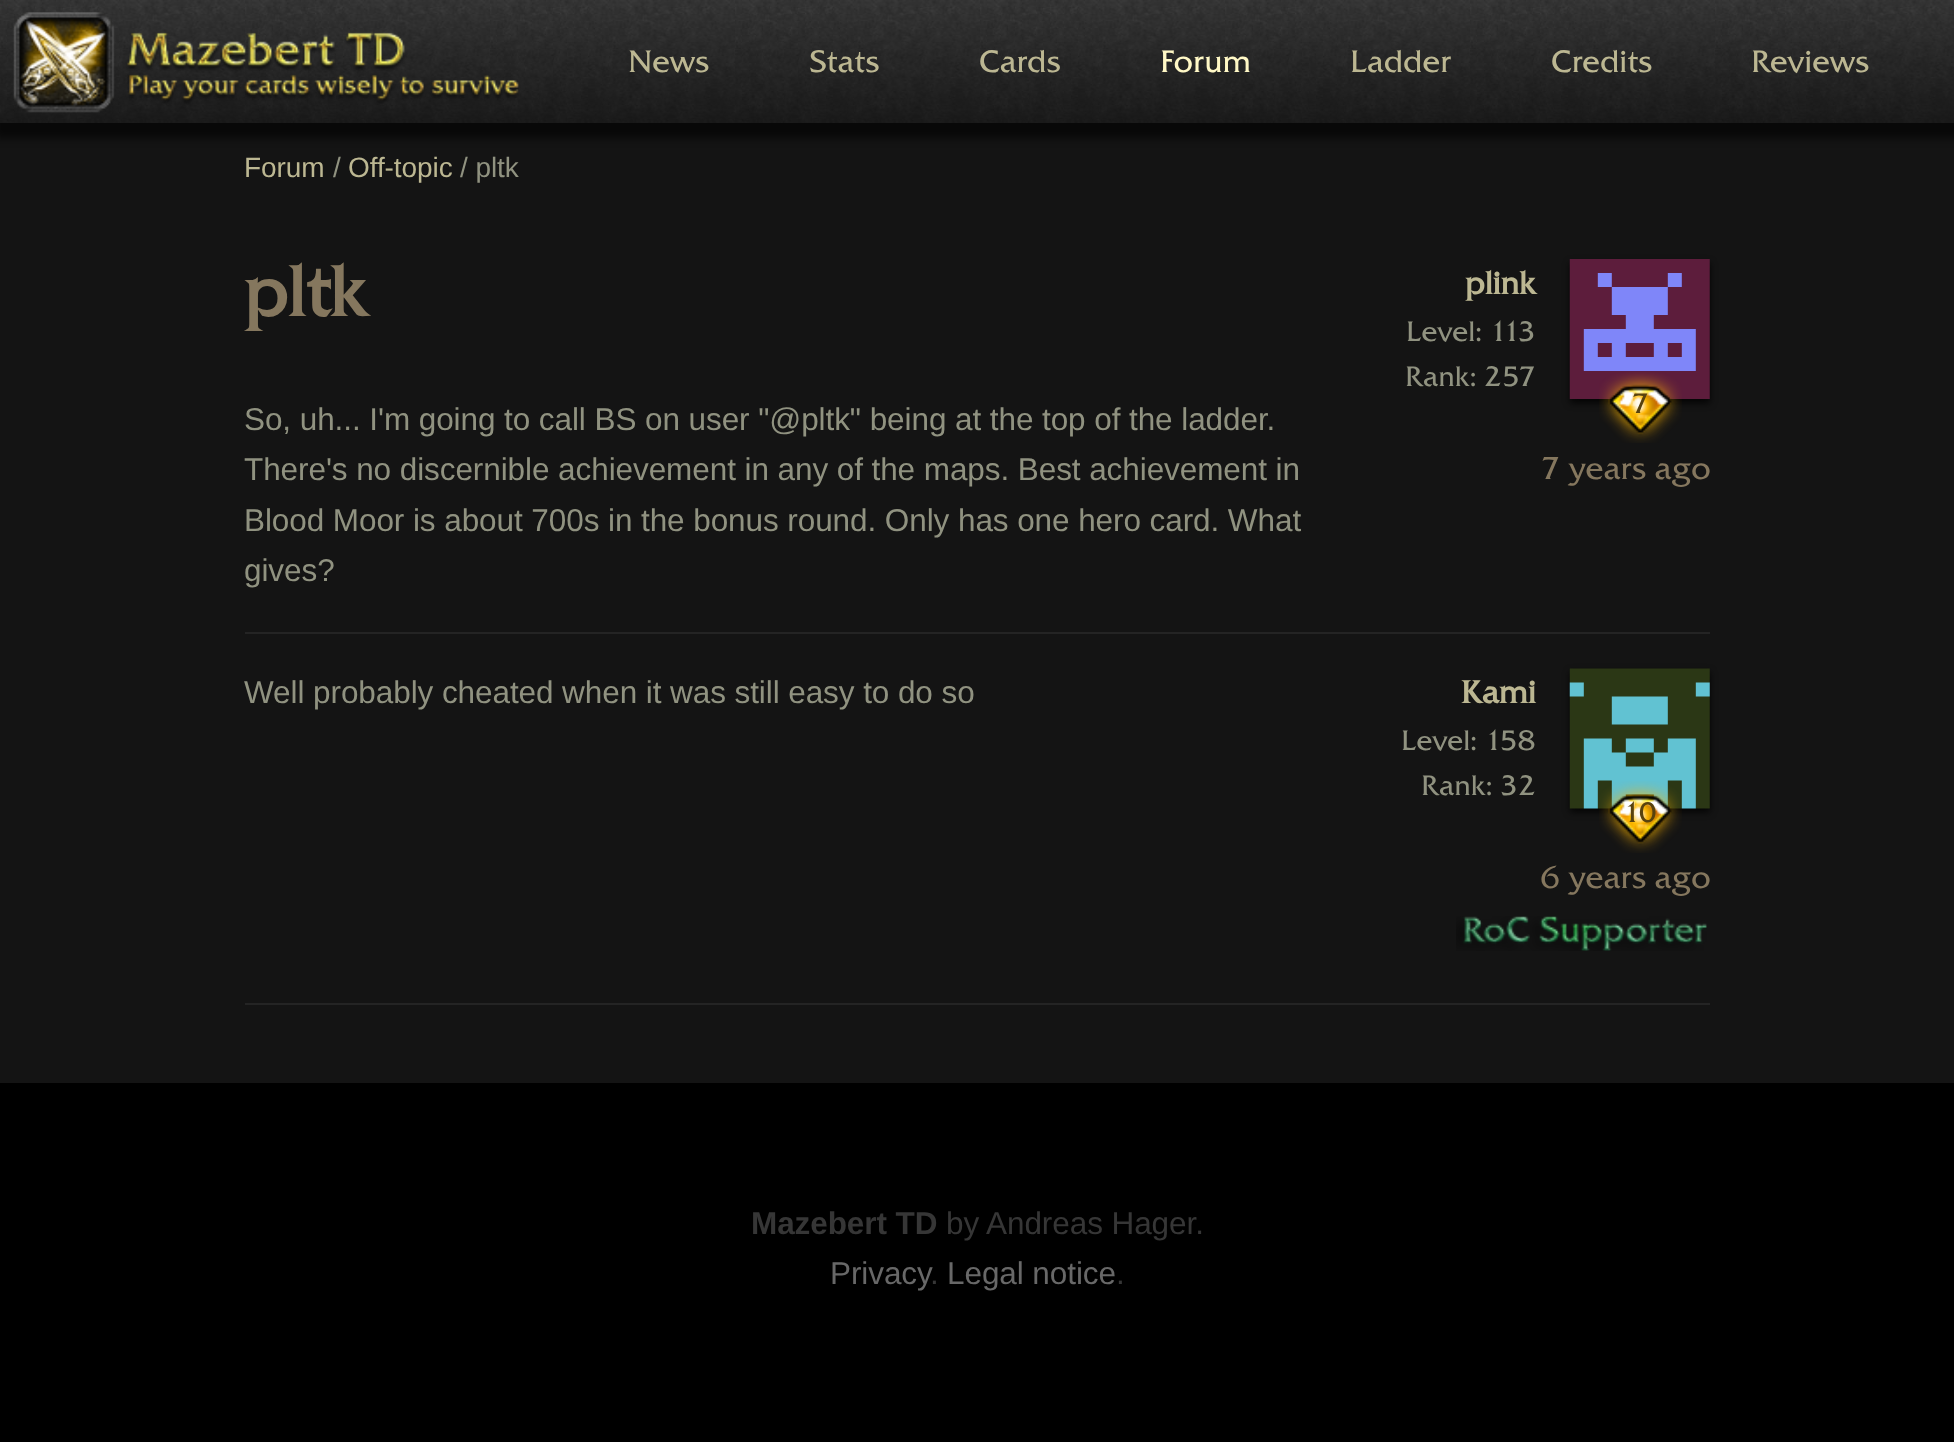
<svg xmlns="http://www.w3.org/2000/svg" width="1954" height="1442">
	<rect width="100%" height="100%" fill="#141414" />
	<rect x="-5" y="-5" width="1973" height="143" fill="#000000" fill-opacity="0.6" filter="blur(4.5px)" />
	<image x="0" y="0" width="1954" height="123" href="assets/img1.png" />
	<image x="13" y="12" width="506" height="101" href="assets/img2.png" />
	<g font-family="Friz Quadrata" font-size="31" letter-spacing="-0.08" fill="#BCB792">
		<text x="628" y="72">News</text>
		<text x="809" y="72">Stats</text>
		<text x="979" y="72">Cards</text>
	</g>
	<text x="1160" y="72" font-family="Friz Quadrata" font-size="31" letter-spacing="-0.08" fill="#FFF8C6">Forum</text>
	<g font-family="Friz Quadrata" font-size="31" letter-spacing="-0.08" fill="#BCB792">
		<text x="1350" y="72">Ladder</text>
		<text x="1551" y="72">Credits</text>
		<text x="1751" y="72">Reviews</text>
	</g>
	<text x="244" y="177" font-family="Liberation Sans" font-size="28" letter-spacing="-0.08" fill="#BCB792">Forum</text>
	<text x="333" y="177" font-family="Liberation Sans" font-size="28" letter-spacing="-0.08" fill="#909280">/</text>
	<text x="348" y="177" font-family="Liberation Sans" font-size="28" letter-spacing="-0.08" fill="#BCB792">Off-topic</text>
	<text x="460" y="177" font-family="Liberation Sans" font-size="28" letter-spacing="-0.08" fill="#909280">/ pltk</text>
	<text x="244" y="316" font-family="Friz Quadrata" font-size="70" font-weight="700" letter-spacing="-0.08" fill="#85775E">pltk</text>
	<text x="1465" y="294" font-family="Friz Quadrata" font-size="31.5" font-weight="700" letter-spacing="-0.08" fill="#BCB792">plink</text>
	<g font-family="Friz Quadrata" font-size="28" letter-spacing="-0.08" fill="#909280">
		<text x="1406" y="341">Level: 113</text>
		<text x="1405" y="386">Rank: 257</text>
	</g>
	<rect x="1570" y="263" width="140" height="140" fill="#000000" fill-opacity="0.8" filter="blur(3.5px)" />
	<image x="1569" y="259" width="141" height="140" href="assets/img3.png" />
	<image x="1599" y="372" width="83" height="71" href="assets/img4.png" />
	<text x="1631" y="413" font-family="Friz Quadrata" font-size="28" letter-spacing="-0.08" fill="#58420E">7</text>
	<text x="1540" y="479" font-family="Friz Quadrata" font-size="31.5" letter-spacing="-0.08" fill="#85775E">7 years ago</text>
	<g font-family="Liberation Sans" font-size="31.5" letter-spacing="-0.08" fill="#909280">
		<text x="244" y="430">So, uh... I'm going to call BS on user "@pltk" being at the top of the ladder.</text>
		<text x="244" y="480">There's no discernible achievement in any of the maps. Best achievement in</text>
		<text x="244" y="531">Blood Moor is about 700s in the bonus round. Only has one hero card. What</text>
		<text x="244" y="581">gives?</text>
	</g>
	<rect x="245" y="632" width="1465" height="2" fill="#242424" />
	<text x="244" y="703" font-family="Liberation Sans" font-size="31.5" letter-spacing="-0.08" fill="#909280">Well probably cheated when it was still easy to do so</text>
	<text x="1461" y="703" font-family="Friz Quadrata" font-size="31.5" font-weight="700" letter-spacing="-0.08" fill="#BCB792">Kami</text>
	<g font-family="Friz Quadrata" font-size="28" letter-spacing="-0.08" fill="#909280">
		<text x="1401" y="750">Level: 158</text>
		<text x="1421" y="795">Rank: 32</text>
	</g>
	<rect x="1570" y="672" width="140" height="140" fill="#000000" fill-opacity="0.8" filter="blur(3.5px)" />
	<image x="1569" y="668" width="141" height="141" href="assets/img5.png" />
	<image x="1599" y="781" width="83" height="72" href="assets/img6.png" />
	<text x="1623" y="822" font-family="Friz Quadrata" font-size="28" letter-spacing="-0.08" fill="#58420E">10</text>
	<text x="1540" y="888" font-family="Friz Quadrata" font-size="31.5" letter-spacing="-0.08" fill="#85775E">6 years ago</text>
	<image x="1456" y="916" width="251" height="35" href="assets/img7.png" />
	<rect x="245" y="1003" width="1465" height="2" fill="#242424" />
	<rect x="0" y="1083" width="1954" height="359" fill="#000000" />
	<text x="751" y="1234" font-family="Liberation Sans" font-size="31.5" font-weight="700" letter-spacing="-0.08" fill="#363636">Mazebert TD</text>
	<text x="946" y="1234" font-family="Liberation Sans" font-size="31.5" letter-spacing="-0.08" fill="#363636">by Andreas Hager.</text>
	<text x="830" y="1284" font-family="Liberation Sans" font-size="31.5" letter-spacing="-0.08" fill="#686868">Privacy</text>
	<text x="930" y="1284" font-family="Liberation Sans" font-size="31.5" letter-spacing="-0.08" fill="#363636">.</text>
	<text x="947" y="1284" font-family="Liberation Sans" font-size="31.5" letter-spacing="-0.08" fill="#686868">Legal notice</text>
	<text x="1116" y="1284" font-family="Liberation Sans" font-size="31.5" letter-spacing="-0.08" fill="#363636">.</text>
</svg>
